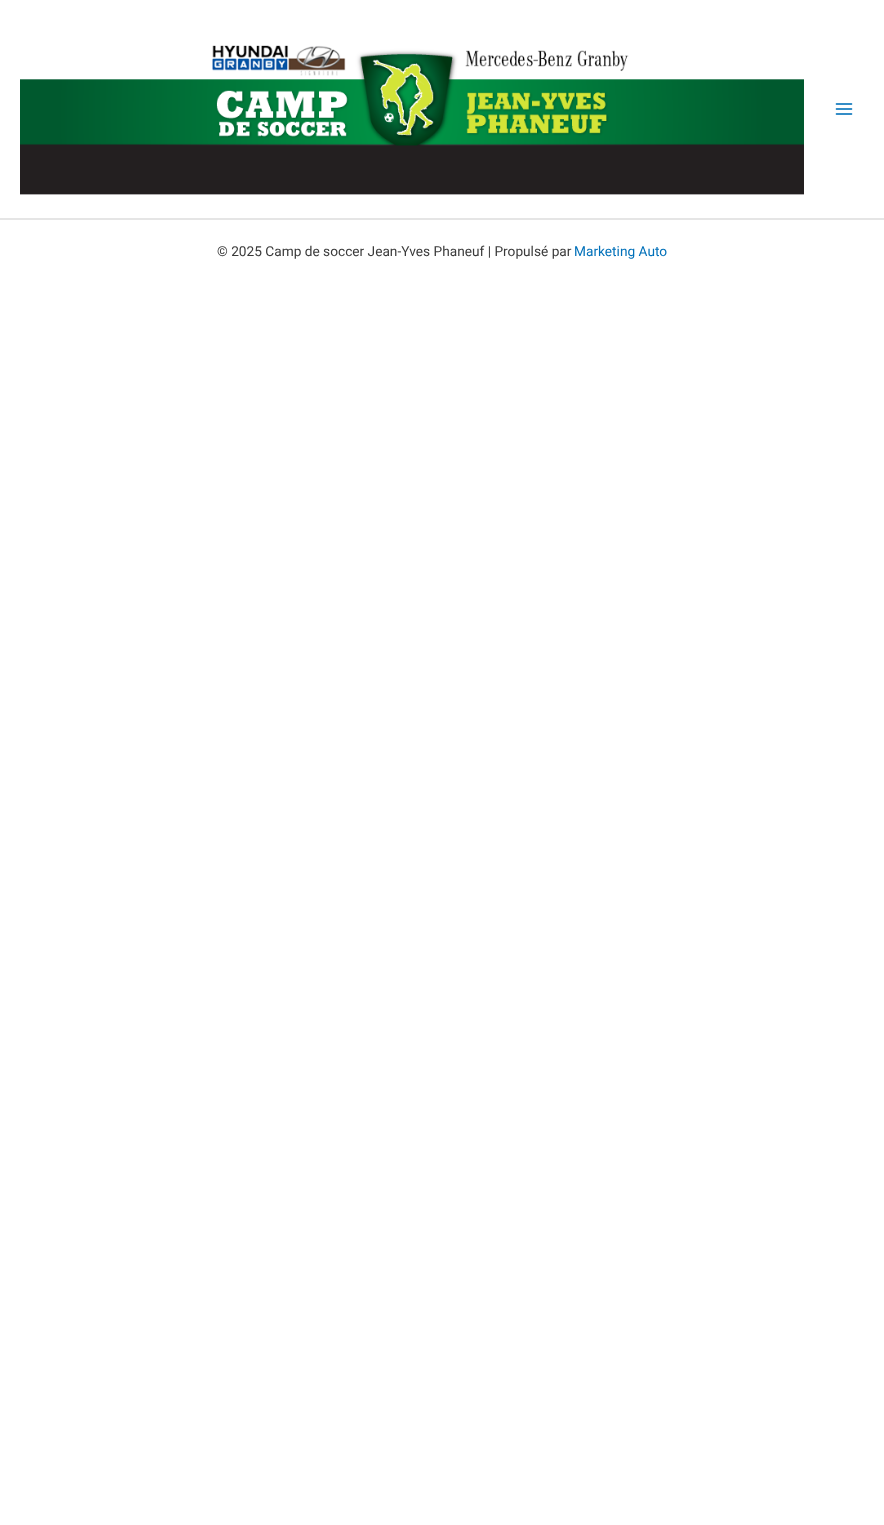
<svg xmlns="http://www.w3.org/2000/svg" width="884" height="1525">
	<rect width="100%" height="100%" fill="#FFFFFF" />
	<image x="20" y="45" width="784" height="150" href="assets/img1.png" />
	<image x="835" y="103" width="18" height="12" href="assets/img2.png" />
	<rect x="0" y="218" width="884" height="2" fill="#E5E5E5" />
	<text x="217" y="256" font-family="Roboto" font-size="13.7" fill="#3A3A3A">© 2025 Camp de soccer Jean-Yves Phaneuf | Propulsé par</text>
	<text x="574" y="256" font-family="Roboto" font-size="13.7" fill="#0170B9">Marketing Auto</text>
</svg>
